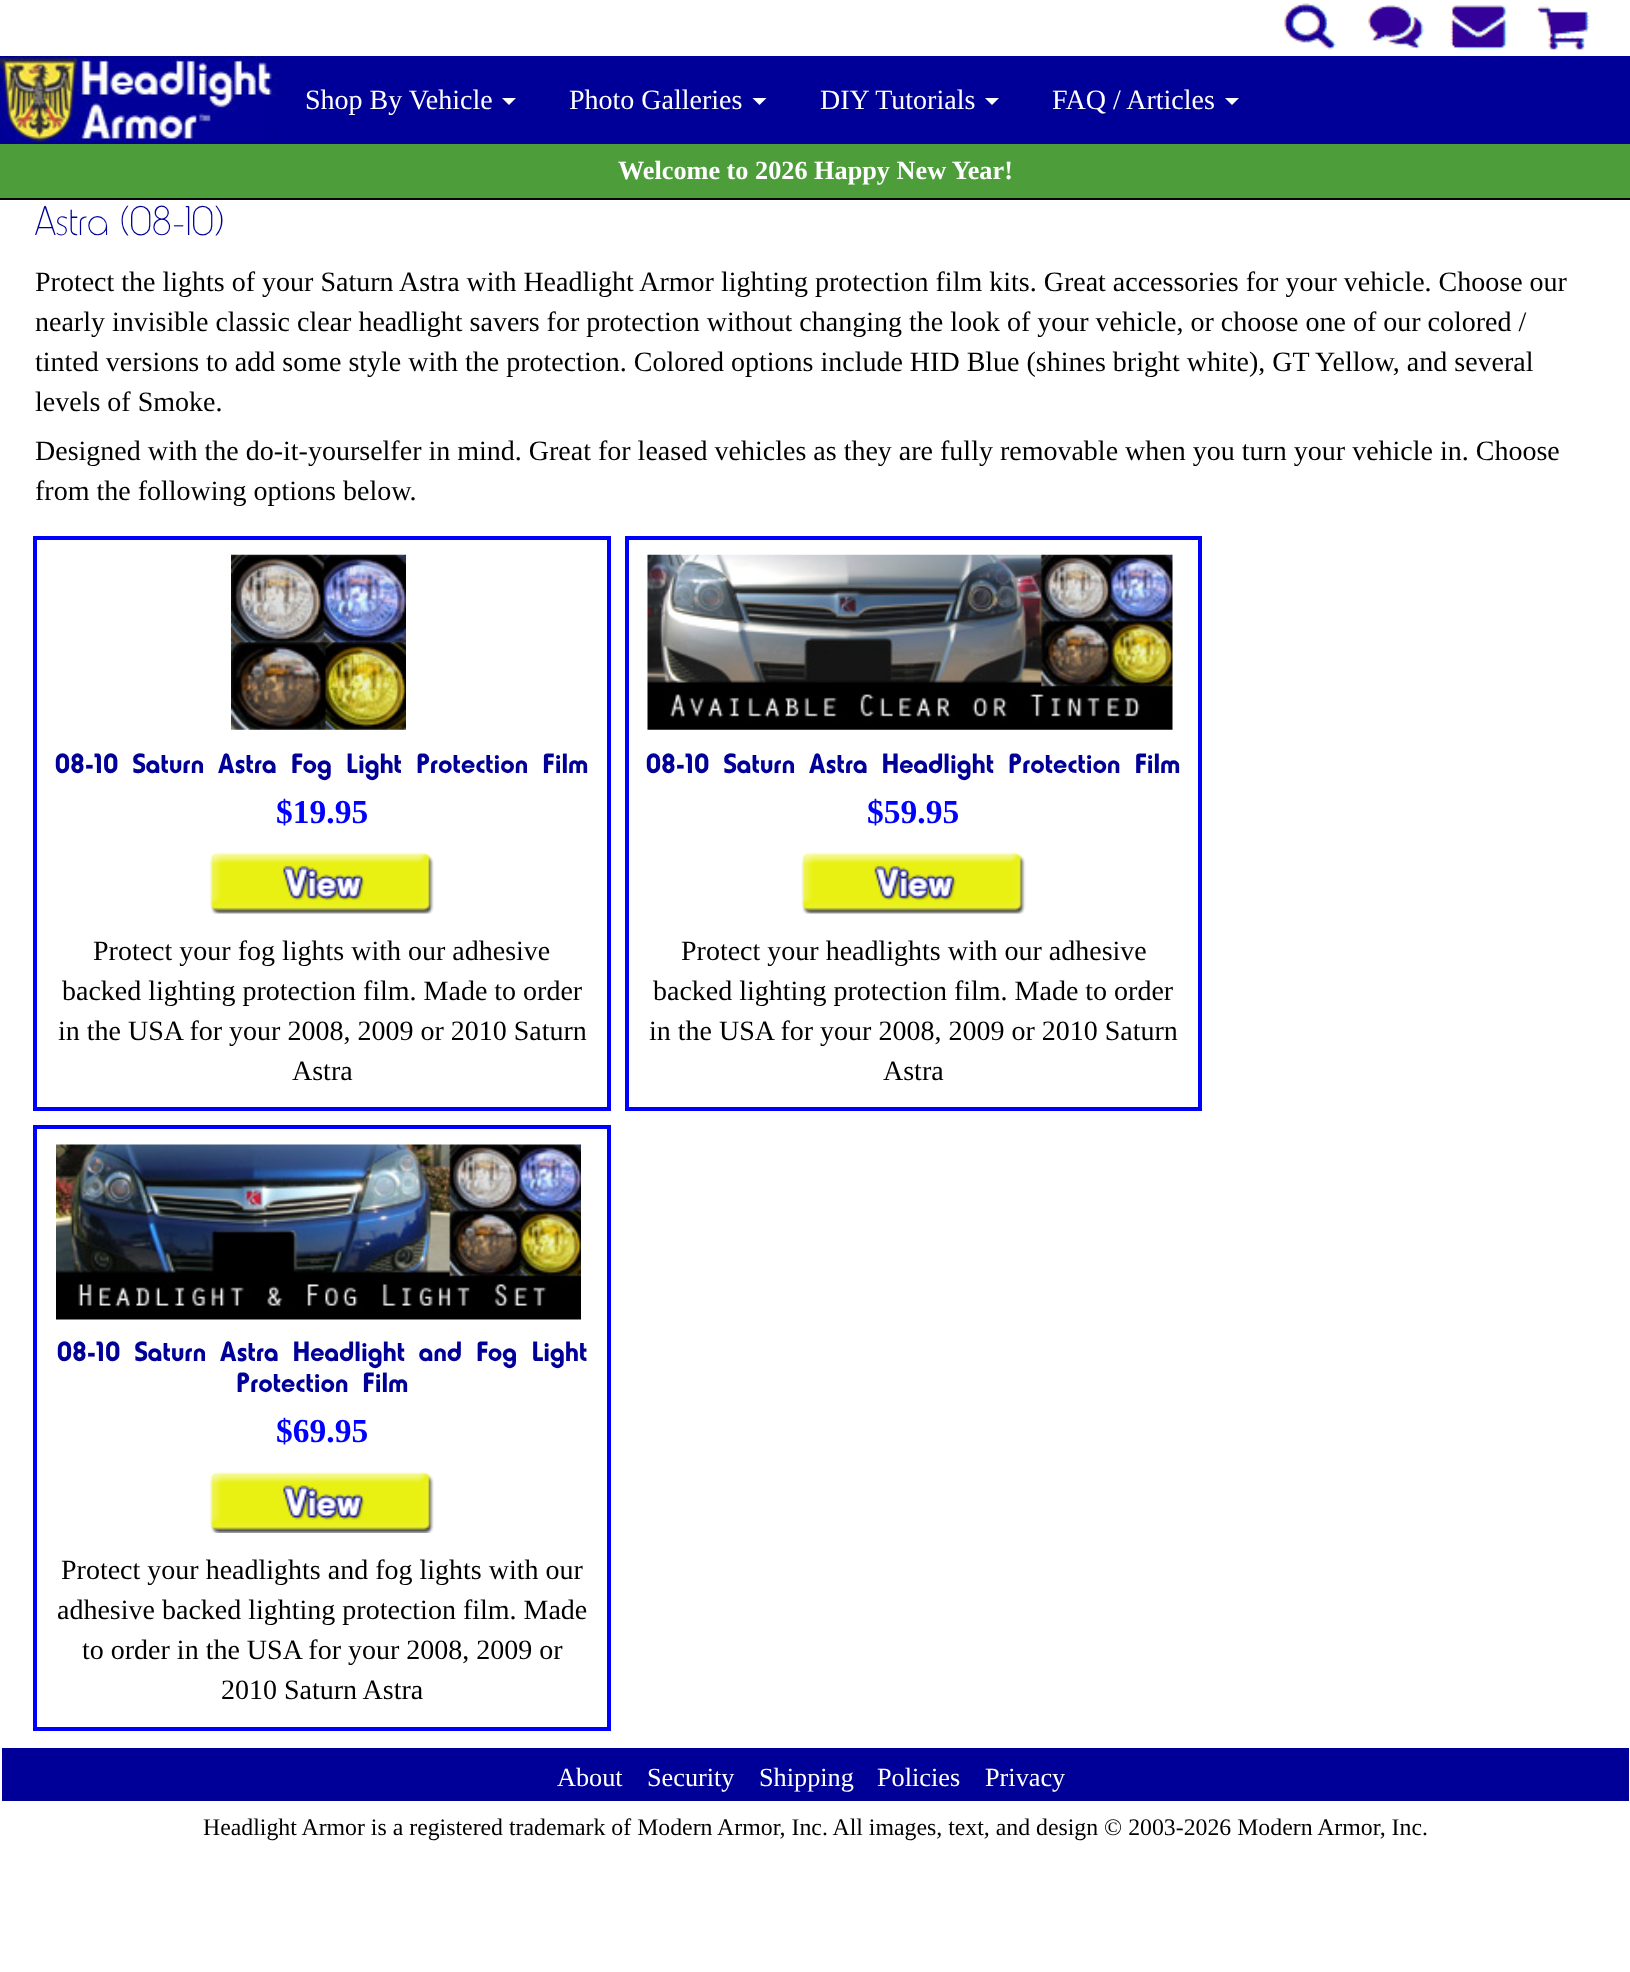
<svg xmlns="http://www.w3.org/2000/svg" width="1630" height="1972">
	<rect width="100%" height="100%" fill="#FFFFFF" />
	<rect x="0" y="198" width="1630" height="2" fill="#080808" />
	<image x="1284" y="3" width="52" height="47" href="assets/img1.png" />
	<image x="1368" y="5" width="57" height="45" href="assets/img2.png" />
	<image x="1450" y="5" width="58" height="45" href="assets/img3.png" />
	<image x="1536" y="6" width="54" height="44" href="assets/img4.png" />
	<rect x="0" y="56" width="1630" height="88" fill="#000099" />
	<image x="0" y="56" width="279" height="88" href="assets/img5.png" />
	<text x="305" y="109" font-family="Liberation Serif" font-size="28" fill="#FFFFFF">Shop By Vehicle</text>
	<path d="M502 98H516L509 105Z" fill="#FFFFFF" />
	<text x="569" y="109" font-family="Liberation Serif" font-size="28" fill="#FFFFFF">Photo Galleries</text>
	<path d="M752.5 98H766.5L759.5 105Z" fill="#FFFFFF" />
	<text x="820" y="109" font-family="Liberation Serif" font-size="28" fill="#FFFFFF">DIY Tutorials</text>
	<path d="M985 98H999L992 105Z" fill="#FFFFFF" />
	<text x="1052" y="109" font-family="Liberation Serif" font-size="28" fill="#FFFFFF">FAQ / Articles</text>
	<path d="M1225 98H1239L1232 105Z" fill="#FFFFFF" />
	<rect x="0" y="144" width="1630" height="54" fill="#4D9E3A" />
	<text x="618" y="179" font-family="Liberation Serif" font-size="26.25" font-weight="700" fill="#FFFFFF">Welcome to 2026 Happy New Year!</text>
	<text x="35" y="235" font-family="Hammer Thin" font-size="42" font-weight="100" fill="#000099">Astra (08-10)</text>
	<g font-family="Liberation Serif" font-size="28" fill="#000000">
		<text x="35" y="291">Protect the lights of your Saturn Astra with Headlight Armor lighting protection film kits. Great accessories for your vehicle. Choose our</text>
		<text x="35" y="331">nearly invisible classic clear headlight savers for protection without changing the look of your vehicle, or choose one of our colored /</text>
		<text x="35" y="371">tinted versions to add some style with the protection. Colored options include HID Blue (shines bright white), GT Yellow, and several</text>
		<text x="35" y="411">levels of Smoke.</text>
		<text x="35" y="460">Designed with the do-it-yourselfer in mind. Great for leased vehicles as they are fully removable when you turn your vehicle in. Choose</text>
		<text x="35" y="500">from the following options below.</text>
	</g>
	<rect x="35" y="538" width="574" height="571" fill="none" stroke="#0000FF" stroke-width="4" />
	<image x="231" y="554" width="175" height="176" href="assets/img6.png" />
	<text x="55" y="773" font-family="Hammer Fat" font-size="28" font-weight="100" fill="#000099">08-10 Saturn Astra Fog Light Protection Film</text>
	<text x="276" y="823" font-family="Liberation Serif" font-size="33.5" font-weight="700" fill="#0000FF">$19.95</text>
	<image x="210" y="852" width="224" height="62" href="assets/img7.png" />
	<g font-family="Liberation Serif" font-size="28" fill="#000000">
		<text x="93" y="960">Protect your fog lights with our adhesive</text>
		<text x="62" y="1000">backed lighting protection film. Made to order</text>
		<text x="58" y="1040">in the USA for your 2008, 2009 or 2010 Saturn</text>
		<text x="292" y="1080">Astra</text>
	</g>
	<rect x="627" y="538" width="573" height="571" fill="none" stroke="#0000FF" stroke-width="4" />
	<image x="647" y="554" width="526" height="176" href="assets/img8.png" />
	<text x="646" y="773" font-family="Hammer Fat" font-size="28" font-weight="100" fill="#000099">08-10 Saturn Astra Headlight Protection Film</text>
	<text x="867" y="823" font-family="Liberation Serif" font-size="33.5" font-weight="700" fill="#0000FF">$59.95</text>
	<image x="801" y="852" width="225" height="62" href="assets/img9.png" />
	<g font-family="Liberation Serif" font-size="28" fill="#000000">
		<text x="681" y="960">Protect your headlights with our adhesive</text>
		<text x="653" y="1000">backed lighting protection film. Made to order</text>
		<text x="649" y="1040">in the USA for your 2008, 2009 or 2010 Saturn</text>
		<text x="883" y="1080">Astra</text>
	</g>
	<rect x="35" y="1127" width="574" height="602" fill="none" stroke="#0000FF" stroke-width="4" />
	<image x="56" y="1144" width="525" height="176" href="assets/img10.png" />
	<g font-family="Hammer Fat" font-size="28" font-weight="100" fill="#000099">
		<text x="57" y="1361">08-10 Saturn Astra Headlight and Fog Light</text>
		<text x="236" y="1392">Protection Film</text>
	</g>
	<text x="276" y="1442" font-family="Liberation Serif" font-size="33.5" font-weight="700" fill="#0000FF">$69.95</text>
	<image x="210" y="1471" width="224" height="62" href="assets/img11.png" />
	<g font-family="Liberation Serif" font-size="28" fill="#000000">
		<text x="61" y="1579">Protect your headlights and fog lights with our</text>
		<text x="57" y="1619">adhesive backed lighting protection film. Made</text>
		<text x="82" y="1659">to order in the USA for your 2008, 2009 or</text>
		<text x="221" y="1699">2010 Saturn Astra</text>
	</g>
	<rect x="2" y="1748" width="1627" height="53" fill="#000099" />
	<g font-family="Liberation Serif" font-size="26.25" fill="#FFFFFF">
		<text x="557" y="1786">About</text>
		<text x="647" y="1786">Security</text>
		<text x="759" y="1786">Shipping</text>
		<text x="877" y="1786">Policies</text>
		<text x="985" y="1786">Privacy</text>
	</g>
	<text x="203" y="1835" font-family="Liberation Serif" font-size="23.8" fill="#000000">Headlight Armor is a registered trademark of Modern Armor, Inc. All images, text, and design © 2003-2026 Modern Armor, Inc.</text>
</svg>
